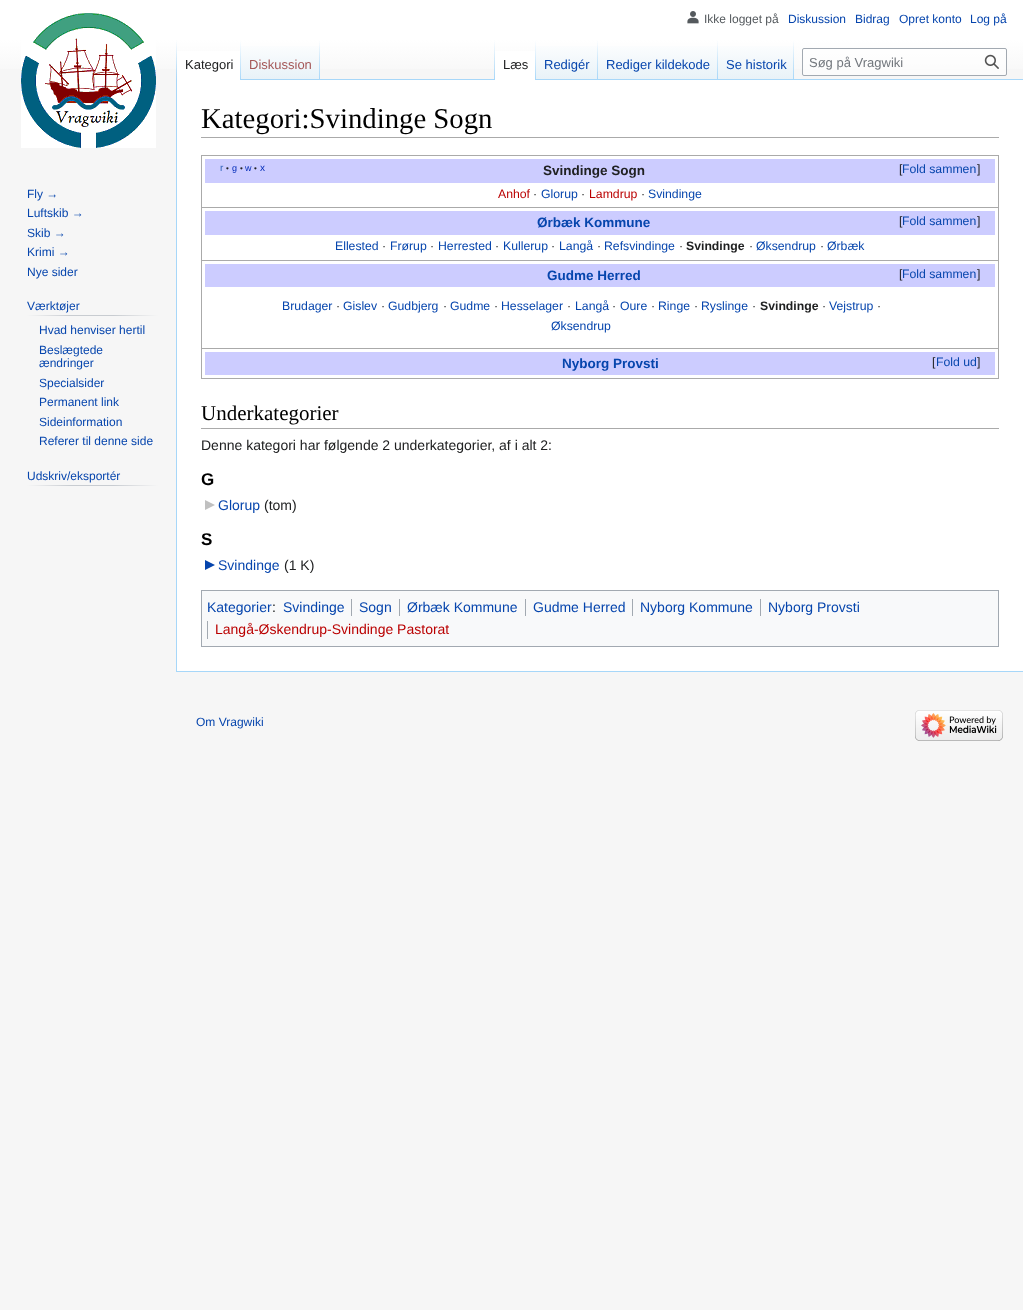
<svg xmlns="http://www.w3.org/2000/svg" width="1023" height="1310">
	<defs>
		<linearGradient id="g1" gradientUnits="userSpaceOnUse" x1="512" y1="0" x2="512" y2="80"><stop offset="0.5" stop-color="#FFFFFF" /><stop offset="1" stop-color="#F6F6F6" /></linearGradient>
		<linearGradient id="g2" gradientUnits="userSpaceOnUse" x1="177" y1="40" x2="177" y2="80"><stop offset="0" stop-color="#A7D7F9" stop-opacity="0" /><stop offset="1" stop-color="#A7D7F9" /></linearGradient>
		<linearGradient id="g3" gradientUnits="userSpaceOnUse" x1="241" y1="40" x2="241" y2="80"><stop offset="0" stop-color="#FFFFFF" /><stop offset="1" stop-color="#A7D7F9" /></linearGradient>
		<linearGradient id="g4" gradientUnits="userSpaceOnUse" x1="281" y1="80" x2="281" y2="40"><stop offset="0" stop-color="#77C1F6" /><stop offset="0.03" stop-color="#E8F2F8" /><stop offset="1" stop-color="#FFFFFF" /></linearGradient>
		<linearGradient id="g5" gradientUnits="userSpaceOnUse" x1="320" y1="40" x2="320" y2="80"><stop offset="0" stop-color="#A7D7F9" stop-opacity="0" /><stop offset="1" stop-color="#A7D7F9" /></linearGradient>
		<linearGradient id="g6" gradientUnits="userSpaceOnUse" x1="495" y1="40" x2="495" y2="80"><stop offset="0" stop-color="#A7D7F9" stop-opacity="0" /><stop offset="1" stop-color="#A7D7F9" /></linearGradient>
		<linearGradient id="g7" gradientUnits="userSpaceOnUse" x1="536" y1="40" x2="536" y2="80"><stop offset="0" stop-color="#FFFFFF" /><stop offset="1" stop-color="#A7D7F9" /></linearGradient>
		<linearGradient id="g8" gradientUnits="userSpaceOnUse" x1="567" y1="80" x2="567" y2="40"><stop offset="0" stop-color="#77C1F6" /><stop offset="0.03" stop-color="#E8F2F8" /><stop offset="1" stop-color="#FFFFFF" /></linearGradient>
		<linearGradient id="g9" gradientUnits="userSpaceOnUse" x1="598" y1="40" x2="598" y2="80"><stop offset="0" stop-color="#A7D7F9" stop-opacity="0" /><stop offset="1" stop-color="#A7D7F9" /></linearGradient>
		<linearGradient id="g10" gradientUnits="userSpaceOnUse" x1="658" y1="80" x2="658" y2="40"><stop offset="0" stop-color="#77C1F6" /><stop offset="0.03" stop-color="#E8F2F8" /><stop offset="1" stop-color="#FFFFFF" /></linearGradient>
		<linearGradient id="g11" gradientUnits="userSpaceOnUse" x1="718" y1="40" x2="718" y2="80"><stop offset="0" stop-color="#A7D7F9" stop-opacity="0" /><stop offset="1" stop-color="#A7D7F9" /></linearGradient>
		<linearGradient id="g12" gradientUnits="userSpaceOnUse" x1="756" y1="80" x2="756" y2="40"><stop offset="0" stop-color="#77C1F6" /><stop offset="0.03" stop-color="#E8F2F8" /><stop offset="1" stop-color="#FFFFFF" /></linearGradient>
		<linearGradient id="g13" gradientUnits="userSpaceOnUse" x1="794" y1="40" x2="794" y2="80"><stop offset="0" stop-color="#A7D7F9" stop-opacity="0" /><stop offset="1" stop-color="#A7D7F9" /></linearGradient>
		<linearGradient id="g14" gradientUnits="userSpaceOnUse" x1="27" y1="316" x2="158" y2="316"><stop offset="0" stop-color="#F6F6F6" /><stop offset="0.33" stop-color="#C8CCD1" /><stop offset="0.66" stop-color="#C8CCD1" /><stop offset="1" stop-color="#F6F6F6" /></linearGradient>
		<linearGradient id="g15" gradientUnits="userSpaceOnUse" x1="27" y1="486" x2="158" y2="486"><stop offset="0" stop-color="#F6F6F6" /><stop offset="0.33" stop-color="#C8CCD1" /><stop offset="0.66" stop-color="#C8CCD1" /><stop offset="1" stop-color="#F6F6F6" /></linearGradient>
	</defs>
	<rect width="100%" height="100%" fill="#F6F6F6" />
	<rect x="0" y="0" width="1023" height="69" fill="url(#g1)" />
	<image x="687" y="11" width="12" height="13" href="assets/img1.png" />
	<text x="704" y="23" font-family="Liberation Sans" font-size="12" fill="#54595D">Ikke logget på</text>
	<g font-family="Liberation Sans" font-size="12" fill="#0645AD">
		<text x="788" y="23">Diskussion</text>
		<text x="855" y="23">Bidrag</text>
		<text x="899" y="23">Opret konto</text>
		<text x="970" y="23">Log på</text>
	</g>
	<rect x="176" y="671" width="847" height="1" fill="#A7D7F9" />
	<rect x="176" y="79" width="1" height="593" fill="#A7D7F9" />
	<rect x="176" y="40" width="1" height="40" fill="url(#g2)" />
	<rect x="177" y="51" width="63" height="29" fill="#FFFFFF" />
	<rect x="240" y="40" width="1" height="40" fill="url(#g3)" />
	<text x="185" y="69" font-family="Liberation Sans" font-size="13" fill="#202122">Kategori</text>
	<rect x="241" y="46" width="79" height="34" fill="url(#g4)" />
	<rect x="319" y="40" width="1" height="40" fill="url(#g5)" />
	<text x="249" y="69" font-family="Liberation Sans" font-size="13" fill="#A55858">Diskussion</text>
	<rect x="320" y="79" width="703" height="1" fill="#A7D7F9" />
	<rect x="494" y="40" width="1" height="40" fill="url(#g6)" />
	<rect x="495" y="51" width="40" height="29" fill="#FFFFFF" />
	<rect x="535" y="40" width="1" height="40" fill="url(#g7)" />
	<text x="503" y="69" font-family="Liberation Sans" font-size="13" fill="#202122">Læs</text>
	<rect x="536" y="46" width="62" height="33" fill="url(#g8)" />
	<rect x="597" y="40" width="1" height="40" fill="url(#g9)" />
	<text x="544" y="69" font-family="Liberation Sans" font-size="13" fill="#0645AD">Redigér</text>
	<rect x="598" y="46" width="120" height="33" fill="url(#g10)" />
	<rect x="717" y="40" width="1" height="40" fill="url(#g11)" />
	<text x="606" y="69" font-family="Liberation Sans" font-size="13" fill="#0645AD">Rediger kildekode</text>
	<rect x="718" y="46" width="76" height="33" fill="url(#g12)" />
	<rect x="793" y="40" width="1" height="40" fill="url(#g13)" />
	<text x="726" y="69" font-family="Liberation Sans" font-size="13" fill="#0645AD">Se historik</text>
	<rect x="802.5" y="48.5" width="204" height="27" rx="1.5" fill="#FFFFFF" fill-opacity="0.5" stroke="#A2A9B1" />
	<text x="809" y="67" font-family="Liberation Sans" font-size="13" fill="#72777D">Søg på Vragwiki</text>
	<image x="984" y="54" width="15" height="15" href="assets/img2.png" />
	<image x="21" y="13" width="135" height="135" href="assets/img3.png" />
	<g font-family="Liberation Sans" font-size="12" fill="#0645AD">
		<text x="27" y="198">Fly →</text>
		<text x="27" y="217">Luftskib →</text>
		<text x="27" y="237">Skib →</text>
		<text x="27" y="256">Krimi →</text>
		<text x="27" y="276">Nye sider</text>
	</g>
	<rect x="27" y="315" width="131" height="1" fill="url(#g14)" />
	<g font-family="Liberation Sans" font-size="12" fill="#0645AD">
		<text x="27" y="310">Værktøjer</text>
		<text x="39" y="334">Hvad henviser hertil</text>
		<text x="39" y="354">Beslægtede</text>
		<text x="39" y="367">ændringer</text>
		<text x="39" y="387">Specialsider</text>
		<text x="39" y="406">Permanent link</text>
		<text x="39" y="426">Sideinformation</text>
		<text x="39" y="445">Referer til denne side</text>
	</g>
	<rect x="27" y="485" width="131" height="1" fill="url(#g15)" />
	<text x="27" y="480" font-family="Liberation Sans" font-size="12" fill="#0645AD">Udskriv/eksportér</text>
	<rect x="177" y="80" width="846" height="591" fill="#FFFFFF" />
	<rect x="201" y="137" width="798" height="1" fill="#AAAAAA" />
	<text x="201" y="128" font-family="Liberation Serif" font-size="28.75" fill="#000000">Kategori:Svindinge Sogn</text>
	<rect x="201.5" y="155.5" width="797" height="52" fill="none" stroke="#AAAAAA" />
	<rect x="205" y="159" width="790" height="24" fill="#CCCCFF" />
	<text x="220" y="171" font-family="Liberation Sans" font-size="10" fill="#3366BB">r</text>
	<text x="226" y="171" font-family="Liberation Sans" font-size="8" fill="#202122">•</text>
	<text x="232" y="171" font-family="Liberation Sans" font-size="9" fill="#002BB8">g</text>
	<text x="240" y="171" font-family="Liberation Sans" font-size="8" fill="#202122">•</text>
	<text x="245" y="171" font-family="Liberation Sans" font-size="9" fill="#002BB8">w</text>
	<text x="254" y="171" font-family="Liberation Sans" font-size="8" fill="#202122">•</text>
	<text x="260" y="171" font-family="Liberation Sans" font-size="10" fill="#002BB8">x</text>
	<text x="543" y="175" font-family="Liberation Sans" font-size="13.5" font-weight="700" fill="#202122">Svindinge Sogn</text>
	<text x="899" y="173" font-family="Liberation Sans" font-size="12.25" fill="#202122">[</text>
	<text x="902" y="173" font-family="Liberation Sans" font-size="12.25" fill="#0645AD">Fold sammen</text>
	<text x="977" y="173" font-family="Liberation Sans" font-size="12.25" fill="#202122">]</text>
	<text x="498" y="198" font-family="Liberation Sans" font-size="12.25" fill="#BA0000">Anhof</text>
	<text x="533" y="198" font-family="Liberation Sans" font-size="12.25" fill="#202122">·</text>
	<text x="541" y="198" font-family="Liberation Sans" font-size="12.25" fill="#0645AD">Glorup</text>
	<text x="581" y="198" font-family="Liberation Sans" font-size="12.25" fill="#202122">·</text>
	<text x="589" y="198" font-family="Liberation Sans" font-size="12.25" fill="#BA0000">Lamdrup</text>
	<text x="641" y="198" font-family="Liberation Sans" font-size="12.25" fill="#202122">·</text>
	<text x="648" y="198" font-family="Liberation Sans" font-size="12.25" fill="#0645AD">Svindinge</text>
	<rect x="201.5" y="207.5" width="797" height="53" fill="none" stroke="#AAAAAA" />
	<rect x="205" y="211" width="790" height="24" fill="#CCCCFF" />
	<text x="537" y="227" font-family="Liberation Sans" font-size="13.5" font-weight="700" fill="#0645AD">Ørbæk Kommune</text>
	<text x="899" y="225" font-family="Liberation Sans" font-size="12.25" fill="#202122">[</text>
	<text x="902" y="225" font-family="Liberation Sans" font-size="12.25" fill="#0645AD">Fold sammen</text>
	<text x="977" y="225" font-family="Liberation Sans" font-size="12.25" fill="#202122">]</text>
	<text x="335" y="250" font-family="Liberation Sans" font-size="12.25" fill="#0645AD">Ellested</text>
	<text x="382" y="250" font-family="Liberation Sans" font-size="12.25" fill="#202122">·</text>
	<text x="390" y="250" font-family="Liberation Sans" font-size="12.25" fill="#0645AD">Frørup</text>
	<text x="430" y="250" font-family="Liberation Sans" font-size="12.25" fill="#202122">·</text>
	<text x="438" y="250" font-family="Liberation Sans" font-size="12.25" fill="#0645AD">Herrested</text>
	<text x="495" y="250" font-family="Liberation Sans" font-size="12.25" fill="#202122">·</text>
	<text x="503" y="250" font-family="Liberation Sans" font-size="12.25" fill="#0645AD">Kullerup</text>
	<text x="551" y="250" font-family="Liberation Sans" font-size="12.25" fill="#202122">·</text>
	<text x="559" y="250" font-family="Liberation Sans" font-size="12.25" fill="#0645AD">Langå</text>
	<text x="597" y="250" font-family="Liberation Sans" font-size="12.25" fill="#202122">·</text>
	<text x="604" y="250" font-family="Liberation Sans" font-size="12.25" fill="#0645AD">Refsvindinge</text>
	<text x="679" y="250" font-family="Liberation Sans" font-size="12.25" fill="#202122">·</text>
	<text x="686" y="250" font-family="Liberation Sans" font-size="12.25" font-weight="700" fill="#202122">Svindinge</text>
	<text x="749" y="250" font-family="Liberation Sans" font-size="12.25" fill="#202122">·</text>
	<text x="756" y="250" font-family="Liberation Sans" font-size="12.25" fill="#0645AD">Øksendrup</text>
	<text x="820" y="250" font-family="Liberation Sans" font-size="12.25" fill="#202122">·</text>
	<text x="827" y="250" font-family="Liberation Sans" font-size="12.25" fill="#0645AD">Ørbæk</text>
	<rect x="201.5" y="260.5" width="797" height="88" fill="none" stroke="#AAAAAA" />
	<rect x="205" y="264" width="790" height="23" fill="#CCCCFF" />
	<text x="547" y="280" font-family="Liberation Sans" font-size="13.5" font-weight="700" fill="#0645AD">Gudme Herred</text>
	<text x="899" y="278" font-family="Liberation Sans" font-size="12.25" fill="#202122">[</text>
	<text x="902" y="278" font-family="Liberation Sans" font-size="12.25" fill="#0645AD">Fold sammen</text>
	<text x="977" y="278" font-family="Liberation Sans" font-size="12.25" fill="#202122">]</text>
	<text x="282" y="310" font-family="Liberation Sans" font-size="12.25" fill="#0645AD">Brudager</text>
	<text x="336" y="310" font-family="Liberation Sans" font-size="12.25" fill="#202122">·</text>
	<text x="343" y="310" font-family="Liberation Sans" font-size="12.25" fill="#0645AD">Gislev</text>
	<text x="381" y="310" font-family="Liberation Sans" font-size="12.25" fill="#202122">·</text>
	<text x="388" y="310" font-family="Liberation Sans" font-size="12.25" fill="#0645AD">Gudbjerg</text>
	<text x="443" y="310" font-family="Liberation Sans" font-size="12.25" fill="#202122">·</text>
	<text x="450" y="310" font-family="Liberation Sans" font-size="12.25" fill="#0645AD">Gudme</text>
	<text x="494" y="310" font-family="Liberation Sans" font-size="12.25" fill="#202122">·</text>
	<text x="501" y="310" font-family="Liberation Sans" font-size="12.25" fill="#0645AD">Hesselager</text>
	<text x="567" y="310" font-family="Liberation Sans" font-size="12.25" fill="#202122">·</text>
	<text x="575" y="310" font-family="Liberation Sans" font-size="12.25" fill="#0645AD">Langå</text>
	<text x="612" y="310" font-family="Liberation Sans" font-size="12.25" fill="#202122">·</text>
	<text x="620" y="310" font-family="Liberation Sans" font-size="12.25" fill="#0645AD">Oure</text>
	<text x="651" y="310" font-family="Liberation Sans" font-size="12.25" fill="#202122">·</text>
	<text x="658" y="310" font-family="Liberation Sans" font-size="12.25" fill="#0645AD">Ringe</text>
	<text x="694" y="310" font-family="Liberation Sans" font-size="12.25" fill="#202122">·</text>
	<text x="701" y="310" font-family="Liberation Sans" font-size="12.25" fill="#0645AD">Ryslinge</text>
	<text x="752" y="310" font-family="Liberation Sans" font-size="12.25" fill="#202122">·</text>
	<text x="760" y="310" font-family="Liberation Sans" font-size="12.25" font-weight="700" fill="#202122">Svindinge</text>
	<text x="822" y="310" font-family="Liberation Sans" font-size="12.25" fill="#202122">·</text>
	<text x="829" y="310" font-family="Liberation Sans" font-size="12.25" fill="#0645AD">Vejstrup</text>
	<text x="877" y="310" font-family="Liberation Sans" font-size="12.25" fill="#202122">·</text>
	<text x="551" y="330" font-family="Liberation Sans" font-size="12.25" fill="#0645AD">Øksendrup</text>
	<rect x="201.5" y="348.5" width="797" height="30" fill="none" stroke="#AAAAAA" />
	<rect x="205" y="352" width="790" height="23" fill="#CCCCFF" />
	<text x="562" y="368" font-family="Liberation Sans" font-size="13.5" font-weight="700" fill="#0645AD">Nyborg Provsti</text>
	<text x="932" y="366" font-family="Liberation Sans" font-size="12.25" fill="#202122">[</text>
	<text x="936" y="366" font-family="Liberation Sans" font-size="12.25" fill="#0645AD">Fold ud</text>
	<text x="977" y="366" font-family="Liberation Sans" font-size="12.25" fill="#202122">]</text>
	<rect x="201" y="428" width="798" height="1" fill="#AAAAAA" />
	<text x="201" y="420" font-family="Liberation Serif" font-size="21" fill="#000000">Underkategorier</text>
	<text x="201" y="450" font-family="Liberation Sans" font-size="14" fill="#202122">Denne kategori har følgende 2 underkategorier, af i alt 2:</text>
	<text x="201" y="485" font-family="Liberation Sans" font-size="17" font-weight="700" fill="#000000">G</text>
	<path d="M205 510V500L215 505Z" fill="#C0C0C0" />
	<text x="218" y="510" font-family="Liberation Sans" font-size="14" fill="#0645AD">Glorup</text>
	<text x="264" y="510" font-family="Liberation Sans" font-size="14" fill="#202122">(tom)</text>
	<text x="201" y="545" font-family="Liberation Sans" font-size="17" font-weight="700" fill="#000000">S</text>
	<path d="M205 570V560L215 565Z" fill="#0645AD" />
	<text x="218" y="570" font-family="Liberation Sans" font-size="14" fill="#0645AD">Svindinge</text>
	<text x="284" y="570" font-family="Liberation Sans" font-size="14" fill="#202122">(1 K)</text>
	<rect x="201.5" y="590.5" width="797" height="56" fill="#F8F9FA" stroke="#A2A9B1" />
	<g font-family="Liberation Sans" font-size="14" fill="#0645AD">
		<text x="207" y="612">Kategorier</text>
		<text x="283" y="612">Svindinge</text>
	</g>
	<rect x="351" y="599" width="1" height="17" fill="#A2A9B1" />
	<text x="359" y="612" font-family="Liberation Sans" font-size="14" fill="#0645AD">Sogn</text>
	<rect x="399" y="599" width="1" height="17" fill="#A2A9B1" />
	<text x="407" y="612" font-family="Liberation Sans" font-size="14" fill="#0645AD">Ørbæk Kommune</text>
	<rect x="525" y="599" width="1" height="17" fill="#A2A9B1" />
	<text x="533" y="612" font-family="Liberation Sans" font-size="14" fill="#0645AD">Gudme Herred</text>
	<rect x="632" y="599" width="1" height="17" fill="#A2A9B1" />
	<text x="640" y="612" font-family="Liberation Sans" font-size="14" fill="#0645AD">Nyborg Kommune</text>
	<rect x="760" y="599" width="1" height="17" fill="#A2A9B1" />
	<text x="768" y="612" font-family="Liberation Sans" font-size="14" fill="#0645AD">Nyborg Provsti</text>
	<rect x="207" y="621" width="1" height="18" fill="#A2A9B1" />
	<text x="215" y="634" font-family="Liberation Sans" font-size="14" fill="#BA0000">Langå-Øskendrup-Svindinge Pastorat</text>
	<text x="272" y="612" font-family="Liberation Sans" font-size="14" fill="#202122">:</text>
	<text x="196" y="726" font-family="Liberation Sans" font-size="12" fill="#0645AD">Om Vragwiki</text>
	<image x="915" y="710" width="88" height="31" href="assets/img4.png" />
</svg>
